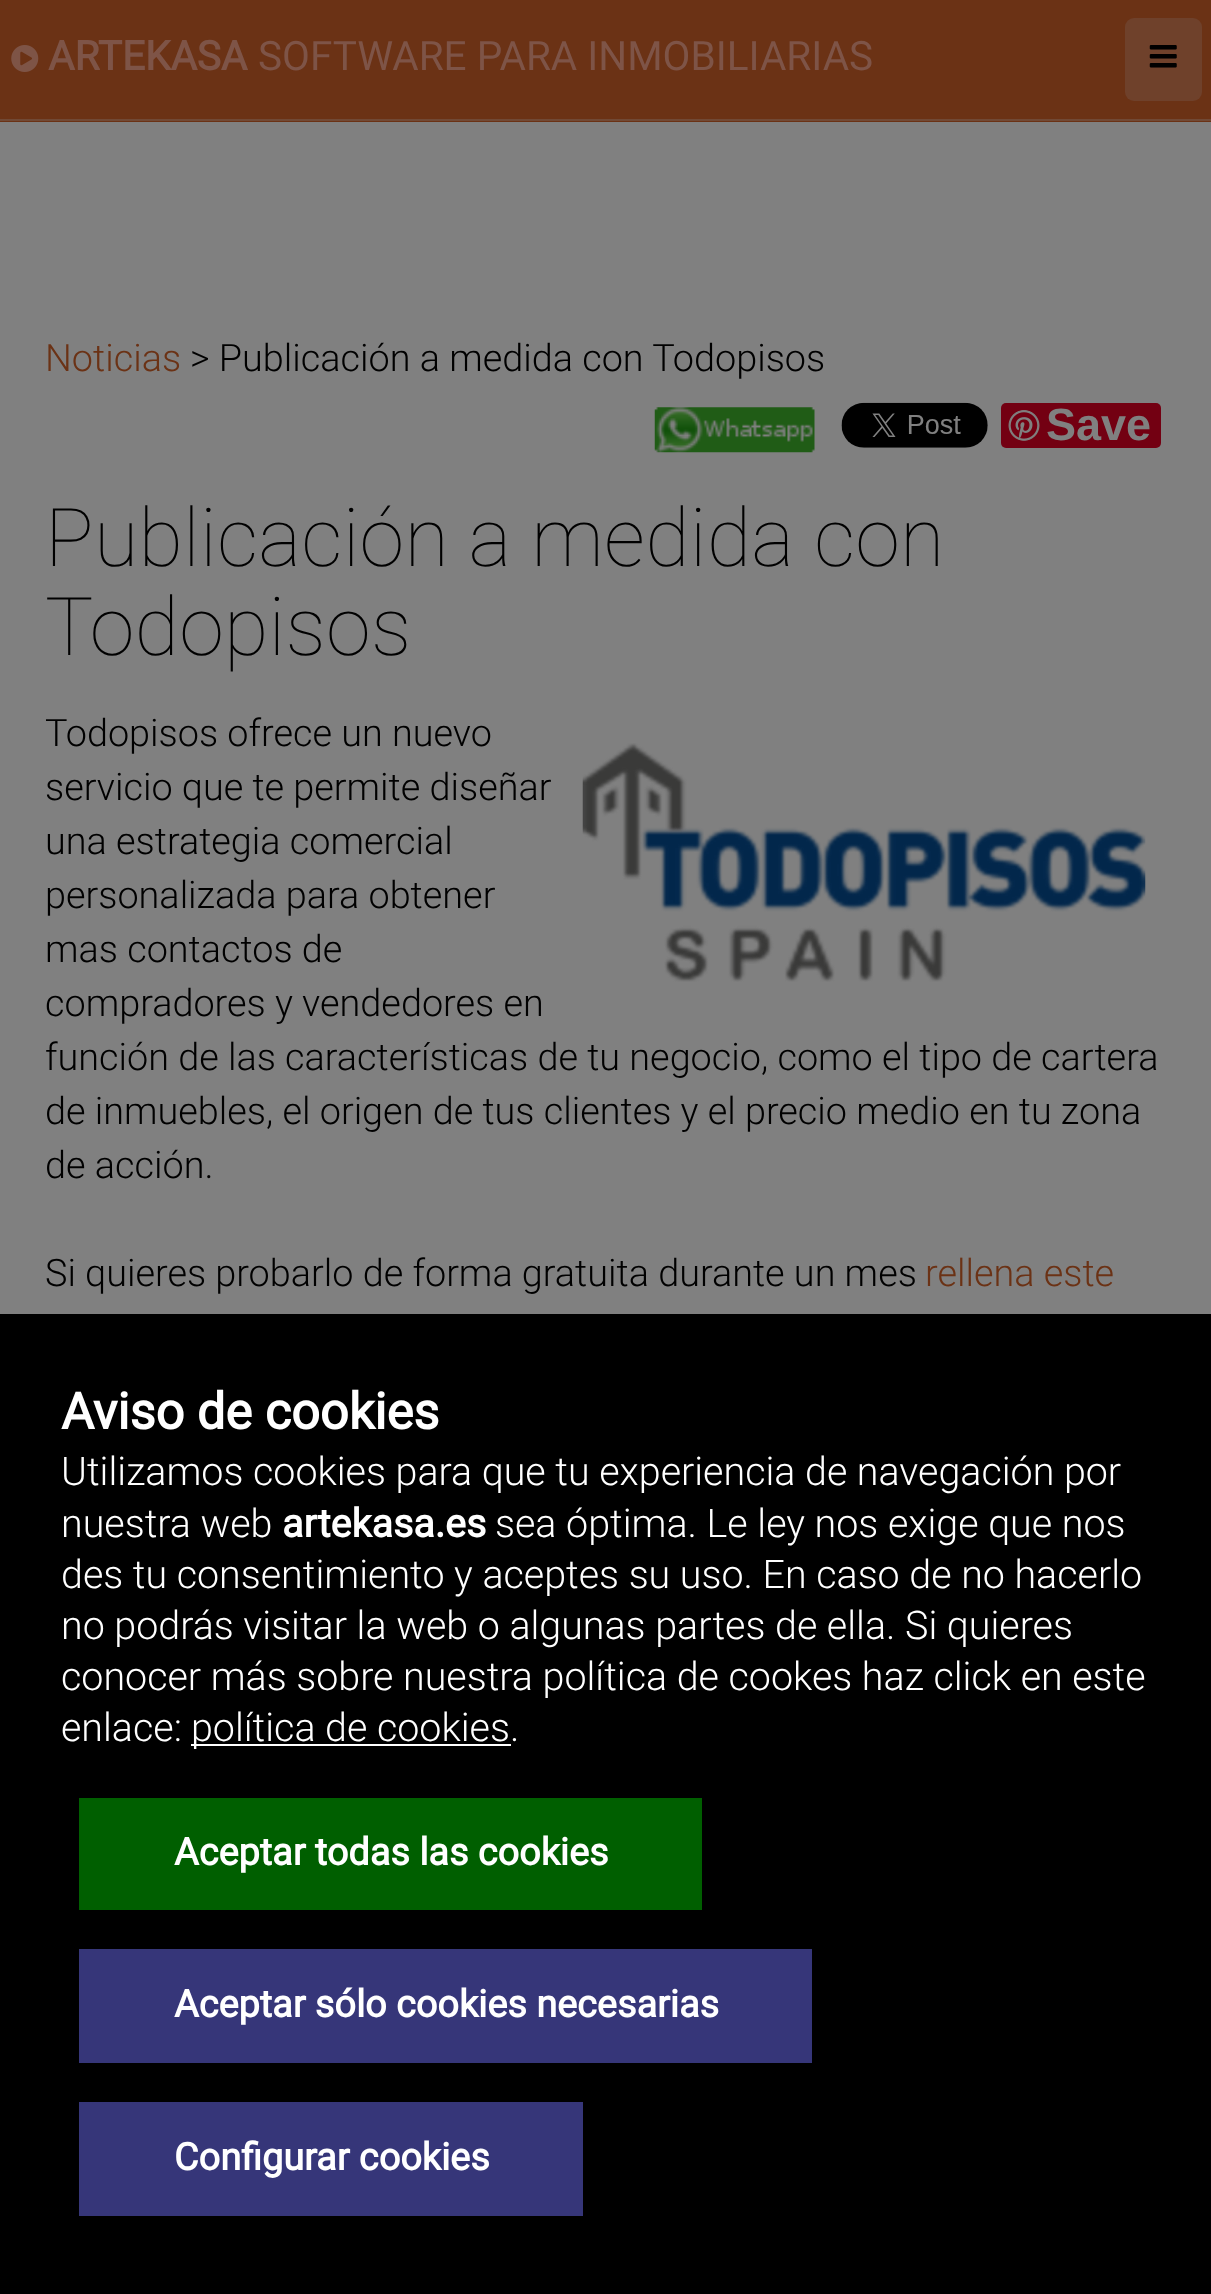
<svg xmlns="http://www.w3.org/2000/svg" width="1211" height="2294">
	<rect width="100%" height="100%" fill="#808080" />
	<rect x="0" y="0" width="1211" height="122" fill="#6B3215" />
	<rect x="0" y="119" width="1211" height="2" fill="#714935" />
	<image x="11" y="45" width="28" height="27" href="assets/img1.png" />
	<text x="48" y="70" font-family="Roboto" font-size="40.5" font-weight="700" fill="#7E5447">ARTEKASA</text>
	<text x="258" y="70" font-family="Roboto" font-size="40.5" fill="#7E5447">SOFTWARE PARA INMOBILIARIAS</text>
	<rect x="1125" y="18" width="77" height="83" rx="9" fill="#6F412B" />
	<image x="1149" y="45" width="28" height="23" href="assets/img2.png" />
	<text x="45" y="371" font-family="Roboto" font-size="37.8" font-weight="300" fill="#6B3215">Noticias</text>
	<text x="190" y="371" font-family="Roboto" font-size="37.8" font-weight="300" fill="#000000">&gt; Publicación a medida con Todopisos</text>
	<image x="654" y="407" width="161" height="46" href="assets/img3.png" />
	<image x="841" y="402" width="147" height="46" href="assets/img4.png" />
	<rect x="1001" y="403" width="160" height="45" rx="5" fill="#730012" />
	<image x="1008" y="410" width="32" height="31" href="assets/img5.png" />
	<text x="1046" y="440" font-family="Liberation Sans" font-size="45" font-weight="700" fill="#808080">Save</text>
	<g font-family="Roboto" font-size="81" font-weight="100" letter-spacing="0.25" fill="#000000">
		<text x="45" y="566">Publicación a medida con</text>
		<text x="45" y="655">Todopisos</text>
	</g>
	<g font-family="Roboto" font-size="37.8" font-weight="300" fill="#000000">
		<text x="45" y="746">Todopisos ofrece un nuevo</text>
		<text x="45" y="800">servicio que te permite diseñar</text>
		<text x="45" y="854">una estrategia comercial</text>
		<text x="45" y="908">personalizada para obtener</text>
		<text x="45" y="962">mas contactos de</text>
		<text x="45" y="1016">compradores y vendedores en</text>
		<text x="45" y="1070">función de las características de tu negocio, como el tipo de cartera</text>
		<text x="45" y="1124">de inmuebles, el origen de tus clientes y el precio medio en tu zona</text>
		<text x="45" y="1178">de acción.</text>
		<text x="45" y="1286">Si quieres probarlo de forma gratuita durante un mes</text>
	</g>
	<text x="925" y="1286" font-family="Roboto" font-size="37.8" font-weight="300" fill="#6B3215">rellena este</text>
	<image x="582" y="743" width="564" height="239" href="assets/img6.png" />
	<rect x="0" y="1314" width="1211" height="980" fill="#000000" />
	<text x="61" y="1429" font-family="Roboto" font-size="50.5" font-weight="700" fill="#FFFFFF">Aviso de cookies</text>
	<g font-family="Roboto" font-size="39.4" font-weight="300" fill="#FFFFFF">
		<text x="61" y="1485">Utilizamos cookies para que tu experiencia de navegación por</text>
		<text x="61" y="1537">nuestra web</text>
	</g>
	<text x="282" y="1537" font-family="Roboto" font-size="39.4" font-weight="700" fill="#FFFFFF">artekasa.es</text>
	<g font-family="Roboto" font-size="39.4" font-weight="300" fill="#FFFFFF">
		<text x="495" y="1537">sea óptima. Le ley nos exige que nos</text>
		<text x="61" y="1588">des tu consentimiento y aceptes su uso. En caso de no hacerlo</text>
		<text x="61" y="1639">no podrás visitar la web o algunas partes de ella. Si quieres</text>
		<text x="61" y="1690">conocer más sobre nuestra política de cookes haz click en este</text>
		<text x="61" y="1741">enlace:</text>
	</g>
	<rect x="191" y="1744" width="320" height="2" fill="#FFFFFF" />
	<text x="191" y="1741" font-family="Roboto" font-size="39.4" font-weight="300" fill="#FFFFFF">política de cookies.</text>
	<rect x="79" y="1798" width="623" height="112" fill="#005F00" />
	<text x="174" y="1865" font-family="Roboto" font-size="37.8" font-weight="700" fill="#FFFFFF">Aceptar todas las cookies</text>
	<rect x="79" y="1949" width="733" height="114" fill="#363679" />
	<text x="174" y="2017" font-family="Roboto" font-size="37.8" font-weight="700" fill="#FFFFFF">Aceptar sólo cookies necesarias</text>
	<rect x="79" y="2102" width="504" height="114" fill="#363679" />
	<text x="174" y="2170" font-family="Roboto" font-size="37.8" font-weight="700" fill="#FFFFFF">Configurar cookies</text>
</svg>
